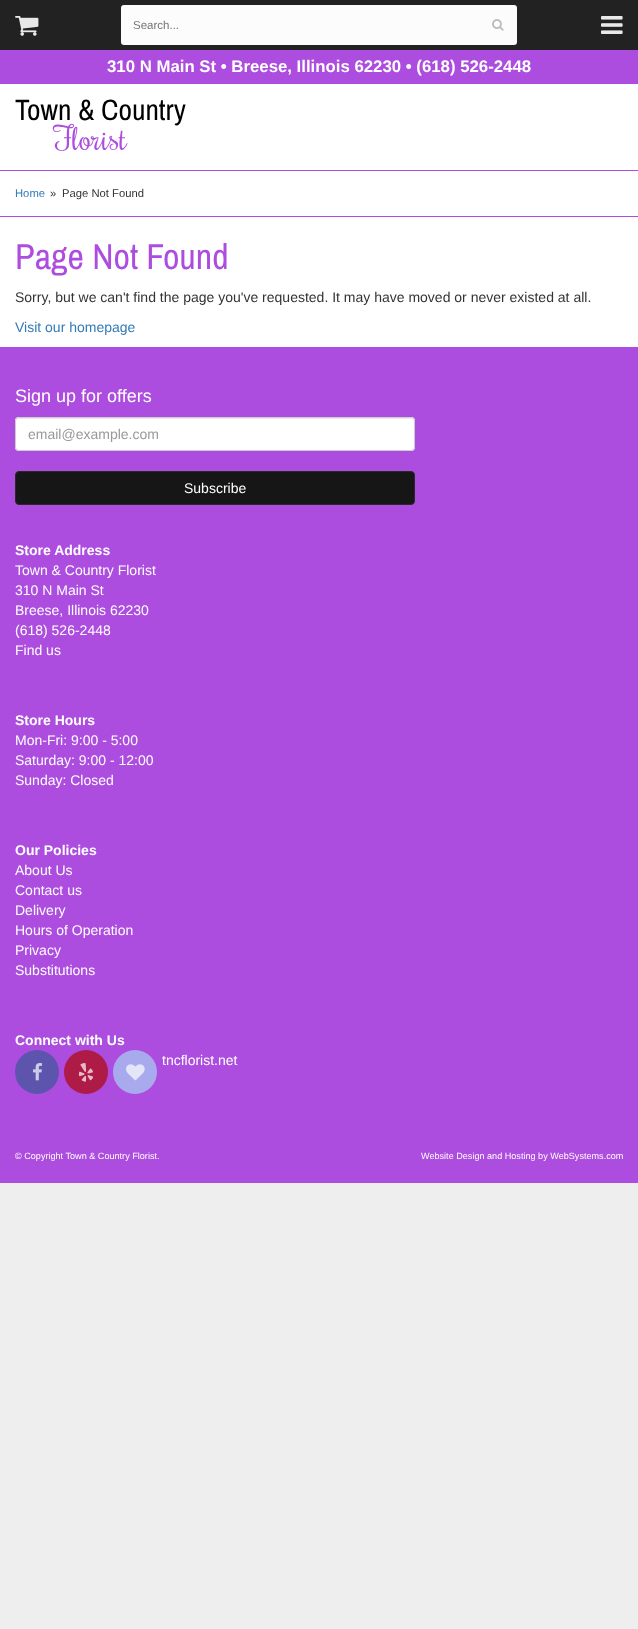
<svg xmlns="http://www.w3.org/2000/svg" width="638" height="1629">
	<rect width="100%" height="100%" fill="#EEEEEE" />
	<rect x="0" y="84" width="638" height="263" fill="#FFFFFF" />
	<rect x="0" y="0" width="638" height="50" fill="#222222" />
	<image x="15" y="16" width="24" height="20" href="assets/img1.png" />
	<rect x="121" y="5" width="396" height="40" rx="3" fill="#FCFCFC" />
	<text x="133" y="29" font-family="Liberation Sans" font-size="11.5" fill="#757575">Search...</text>
	<image x="492" y="19" width="12" height="12" href="assets/img2.png" />
	<image x="601" y="16" width="22" height="18" href="assets/img3.png" />
	<rect x="0" y="50" width="638" height="34" fill="#AC4DDF" />
	<text x="107" y="72" font-family="Liberation Sans" font-size="16.8" font-weight="700" fill="#FFFFFF">310 N Main St • Breese, Illinois 62230 • (618) 526-2448</text>
	<text x="15" y="120" font-family="Archivo Narrow" font-size="29.5" fill="#000000">Town &amp; Country</text>
	<text x="54" y="150" font-family="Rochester" font-size="32" fill="#AC4DDF">Florist</text>
	<rect x="0" y="170" width="638" height="1" fill="#AC4DDF" />
	<rect x="0" y="216" width="638" height="1" fill="#AC4DDF" />
	<text x="15" y="197" font-family="Liberation Sans" font-size="11.25" fill="#337AB7">Home</text>
	<g font-family="Liberation Sans" font-size="11.25" fill="#333333">
		<text x="50" y="197">»</text>
		<text x="62" y="197">Page Not Found</text>
	</g>
	<text x="15" y="269" font-family="Archivo Narrow" font-size="36" fill="#AC4DDF">Page Not Found</text>
	<text x="15" y="302" font-family="Liberation Sans" font-size="14" fill="#333333">Sorry, but we can't find the page you've requested. It may have moved or never existed at all.</text>
	<text x="15" y="332" font-family="Liberation Sans" font-size="14" fill="#337AB7">Visit our homepage</text>
	<rect x="0" y="347" width="638" height="836" fill="#AC4DDF" />
	<text x="15" y="402" font-family="Liberation Sans" font-size="18" fill="#FFFFFF">Sign up for offers</text>
	<rect x="15" y="417" width="400" height="34" rx="4" fill="#FFFFFF" />
	<path d="M19 419H411C413 419 414 420 414 422C414 420 413 418 411 418H19L17 419L16 422C16 420 17 419 19 419Z" fill="#ECECEC" />
	<rect x="15.5" y="417.5" width="399" height="33" rx="3.5" fill="none" stroke="#CCCCCC" />
	<text x="28" y="439" font-family="Liberation Sans" font-size="14" fill="#999999">email@example.com</text>
	<rect x="15.5" y="471.5" width="399" height="33" rx="3.5" fill="#161616" stroke="#292929" />
	<text x="184" y="493" font-family="Liberation Sans" font-size="14" fill="#FFFFFF">Subscribe</text>
	<text x="15" y="555" font-family="Liberation Sans" font-size="14" font-weight="700" fill="#FFFFFF">Store Address</text>
	<g font-family="Liberation Sans" font-size="14" fill="#FFFFFF">
		<text x="15" y="575">Town &amp; Country Florist</text>
		<text x="15" y="595">310 N Main St</text>
		<text x="15" y="615">Breese, Illinois 62230</text>
		<text x="15" y="635">(618) 526-2448</text>
		<text x="15" y="655">Find us</text>
	</g>
	<text x="15" y="725" font-family="Liberation Sans" font-size="14" font-weight="700" fill="#FFFFFF">Store Hours</text>
	<g font-family="Liberation Sans" font-size="14" fill="#FFFFFF">
		<text x="15" y="745">Mon-Fri: 9:00 - 5:00</text>
		<text x="15" y="765">Saturday: 9:00 - 12:00</text>
		<text x="15" y="785">Sunday: Closed</text>
	</g>
	<text x="15" y="855" font-family="Liberation Sans" font-size="14" font-weight="700" fill="#FFFFFF">Our Policies</text>
	<g font-family="Liberation Sans" font-size="14" fill="#FFFFFF">
		<text x="15" y="875">About Us</text>
		<text x="15" y="895">Contact us</text>
		<text x="15" y="915">Delivery</text>
		<text x="15" y="935">Hours of Operation</text>
		<text x="15" y="955">Privacy</text>
		<text x="15" y="975">Substitutions</text>
	</g>
	<text x="15" y="1045" font-family="Liberation Sans" font-size="14" font-weight="700" fill="#FFFFFF">Connect with Us</text>
	<circle cx="37" cy="1072" r="22" fill="#5D55AD" />
	<image x="33" y="1063" width="9" height="18" href="assets/img4.png" />
	<circle cx="86" cy="1072" r="22" fill="#AE1B47" />
	<image x="78" y="1063" width="16" height="19" href="assets/img5.png" />
	<circle cx="135" cy="1072" r="22" fill="#A9AAED" />
	<image x="126" y="1064" width="19" height="17" href="assets/img6.png" />
	<text x="162" y="1065" font-family="Liberation Sans" font-size="14" fill="#FFFFFF">tncflorist.net</text>
	<g font-family="Liberation Sans" font-size="9.1" fill="#FFFFFF">
		<text x="15" y="1159">© Copyright Town &amp; Country Florist.</text>
		<text x="421" y="1159">Website Design and Hosting by WebSystems.com</text>
	</g>
</svg>
